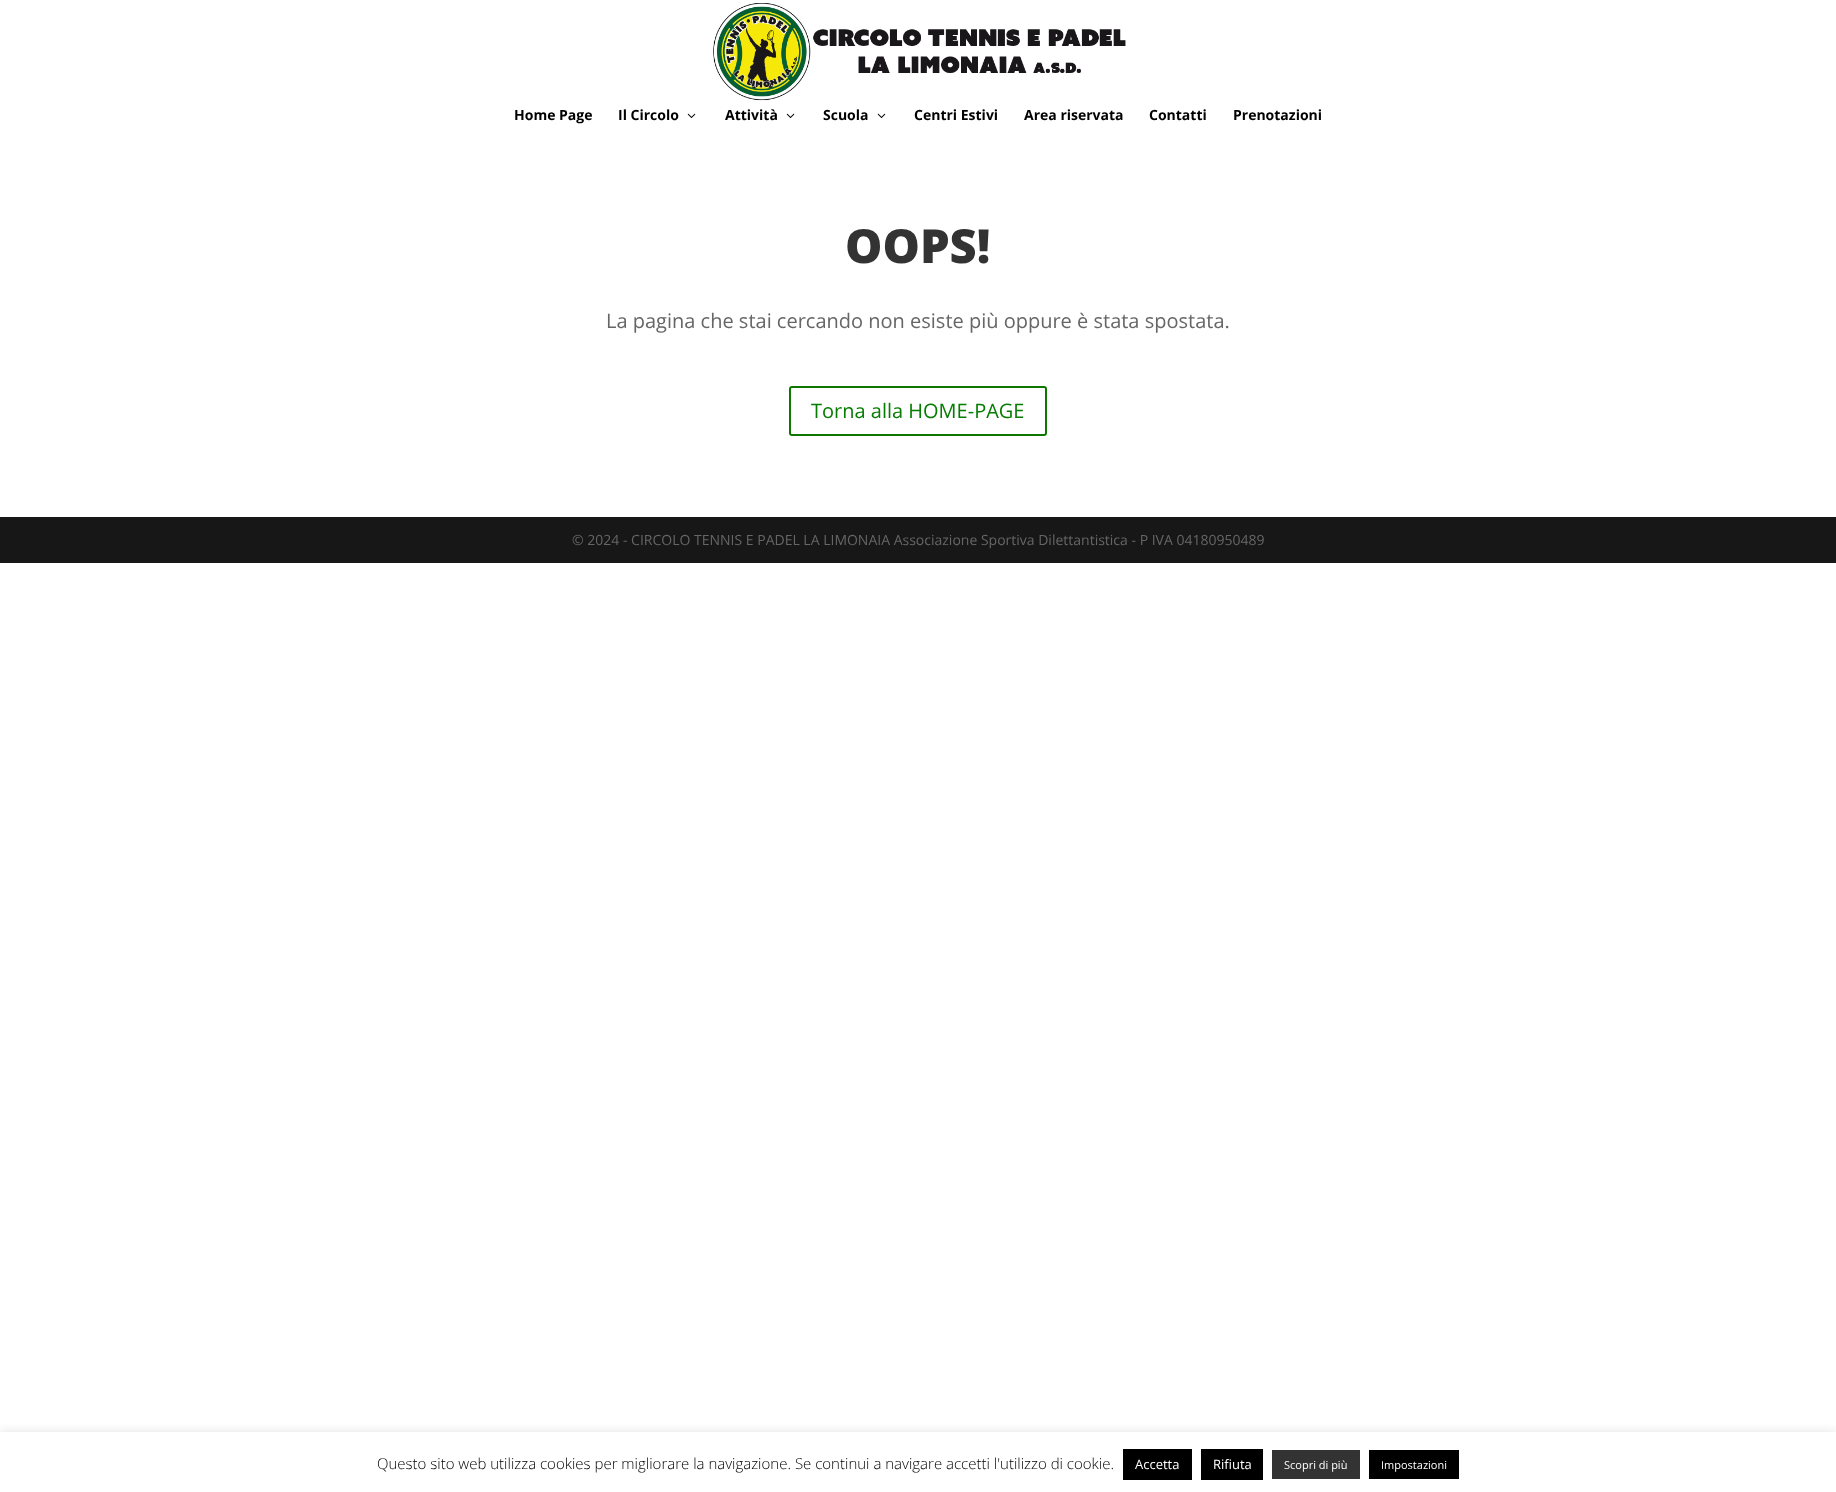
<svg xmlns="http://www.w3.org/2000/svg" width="1836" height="1492">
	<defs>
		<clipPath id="clip1"><rect x="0" y="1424" width="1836" height="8" /></clipPath>
	</defs>
	<rect width="100%" height="100%" fill="#FFFFFF" />
	<image x="713" y="3" width="413" height="98" href="assets/img1.png" />
	<g font-family="Open Sans" font-size="14" font-weight="700" fill="#000000">
		<text x="514" y="120">Home Page</text>
		<text x="618" y="120">Il Circolo</text>
	</g>
	<image x="687" y="113" width="9" height="5" href="assets/img2.png" />
	<text x="725" y="120" font-family="Open Sans" font-size="14" font-weight="700" fill="#000000">Attività</text>
	<image x="786" y="113" width="9" height="5" href="assets/img2.png" />
	<text x="823" y="120" font-family="Open Sans" font-size="14" font-weight="700" fill="#000000">Scuola</text>
	<image x="877" y="113" width="9" height="5" href="assets/img2.png" />
	<g font-family="Open Sans" font-size="14" font-weight="700" fill="#000000">
		<text x="914" y="120">Centri Estivi</text>
		<text x="1024" y="120">Area riservata</text>
		<text x="1149" y="120">Contatti</text>
		<text x="1233" y="120">Prenotazioni</text>
	</g>
	<text x="845" y="263" font-family="Open Sans" font-size="47" font-weight="800" fill="#333333">OOPS!</text>
	<text x="606" y="328" font-family="Open Sans" font-size="20" fill="#666666">La pagina che stai cercando non esiste più oppure è stata spostata.</text>
	<rect x="790" y="387" width="256" height="48" rx="2" fill="none" stroke="#0D7700" stroke-width="2" />
	<text x="811" y="418" font-family="Open Sans" font-size="20" fill="#067C02">Torna alla HOME-PAGE</text>
	<rect x="0" y="517" width="1836" height="46" fill="#171717" />
	<text x="572" y="545" font-family="Open Sans" font-size="14" fill="#666666">© 2024 - CIRCOLO TENNIS E PADEL LA LIMONAIA Associazione Sportiva Dilettantistica - P IVA 04180950489</text>
	<g clip-path="url(#clip1)">
		<rect x="0" y="1431" width="1836" height="60" fill="#ACABAB" fill-opacity="0.3" filter="blur(5px)" />
	</g>
	<text x="377" y="1469" font-family="Open Sans" font-size="15" font-weight="300" fill="#000000">Questo sito web utilizza cookies per migliorare la navigazione. Se continui a navigare accetti l'utilizzo di cookie.</text>
	<rect x="1123" y="1449" width="69" height="31" fill="#000000" />
	<text x="1135" y="1469" font-family="Open Sans" font-size="13" fill="#FFFFFF">Accetta</text>
	<rect x="1201" y="1449" width="62" height="31" fill="#000000" />
	<text x="1213" y="1469" font-family="Open Sans" font-size="13" fill="#FFFFFF">Rifiuta</text>
	<rect x="1272" y="1450" width="88" height="29" fill="#333333" />
	<text x="1284" y="1469" font-family="Open Sans" font-size="11" fill="#FFFFFF">Scopri di più</text>
	<rect x="1369" y="1450" width="90" height="29" fill="#000000" />
	<text x="1381" y="1469" font-family="Open Sans" font-size="11" fill="#FFFFFF">Impostazioni</text>
</svg>
